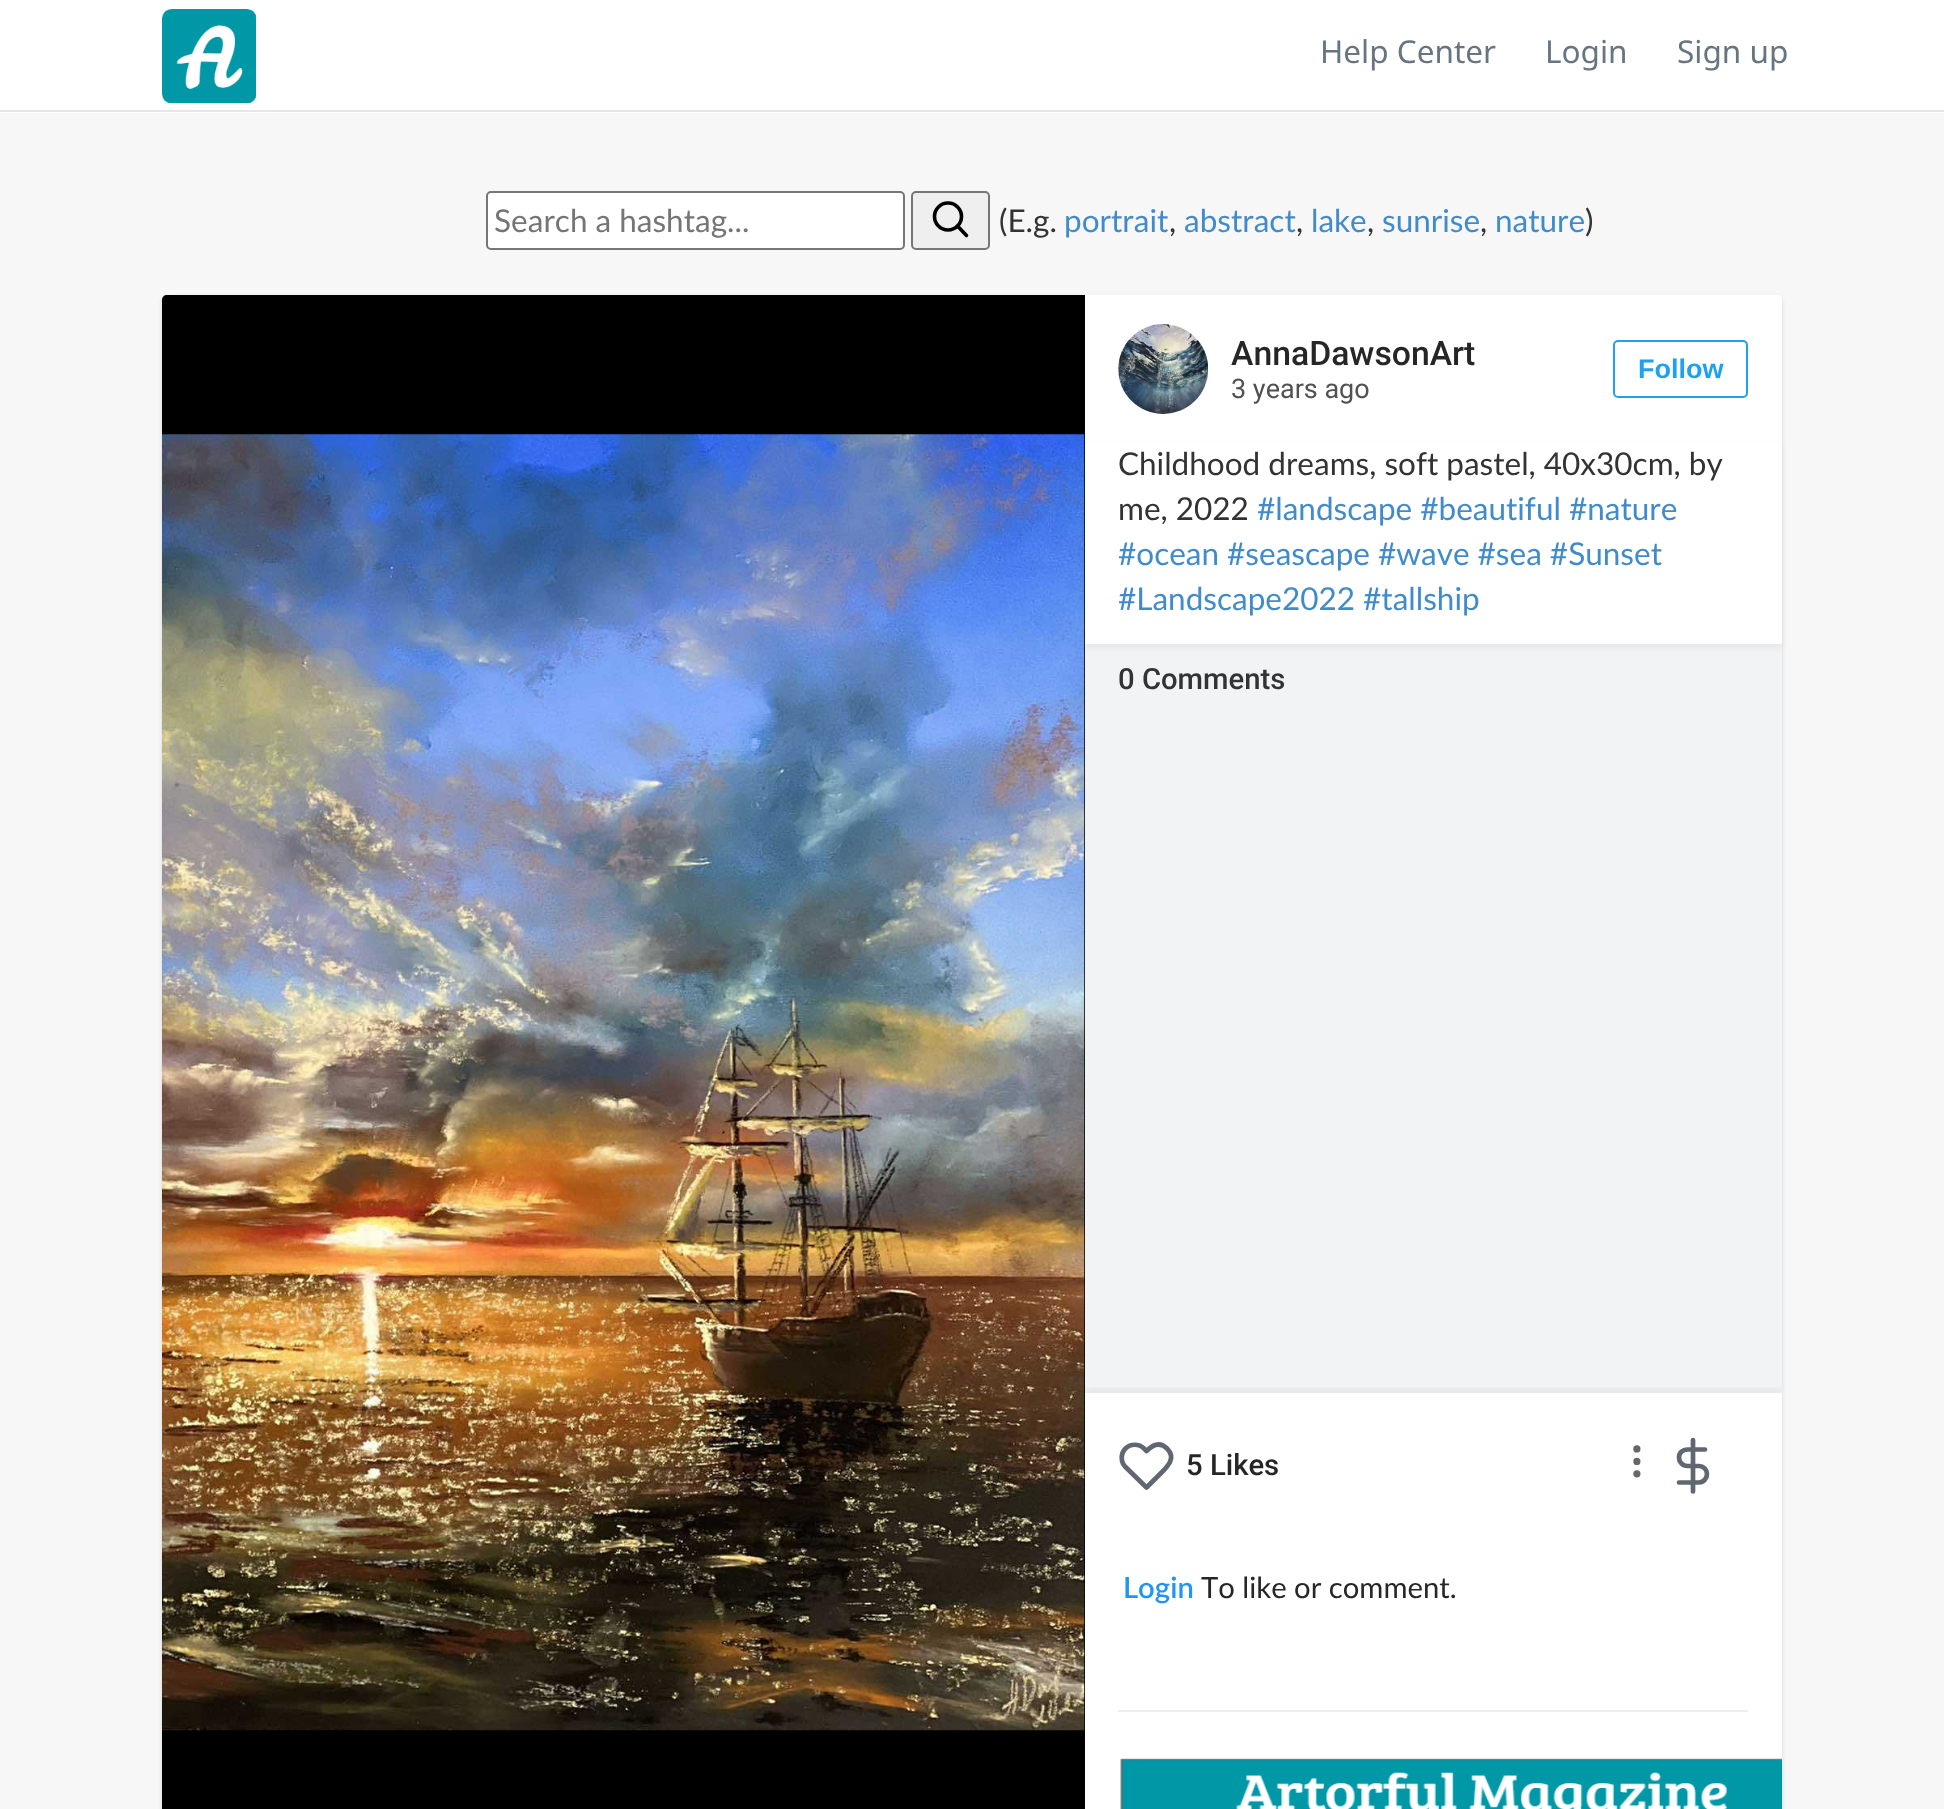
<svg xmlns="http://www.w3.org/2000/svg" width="1944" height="1809">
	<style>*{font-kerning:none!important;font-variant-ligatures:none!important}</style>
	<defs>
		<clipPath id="clip1"><rect x="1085" y="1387" width="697" height="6" /></clipPath>
	</defs>
	<rect width="100%" height="100%" fill="#F7F7F7" />
	<rect x="0" y="0" width="1944" height="113" fill="#FFFFFF" />
	<rect x="0" y="110" width="1944" height="2" fill="#E6E6E6" />
	<image x="162" y="9" width="94" height="94" href="assets/img1.png" />
	<g font-family="Noto Sans" font-size="31.5" fill="#66757F">
		<text x="1320" y="63">Help Center</text>
		<text x="1545" y="63">Login</text>
		<text x="1677" y="63">Sign up</text>
	</g>
	<rect x="487" y="192" width="417" height="57" rx="4" fill="#FFFFFF" stroke="#767676" stroke-width="2" />
	<text x="494" y="232" font-family="Lato" font-size="31.5" fill="#757575">Search a hashtag...</text>
	<rect x="912" y="192" width="77" height="57" rx="4" fill="#EFEFEF" stroke="#767676" stroke-width="2" />
	<circle cx="948" cy="216.5" r="13.5" fill="none" stroke="#000000" stroke-width="3.6" />
	<path d="M966.5 235.5L957.5 226" fill="none" stroke="#000000" stroke-width="3.6" stroke-linecap="round" stroke-linejoin="round" />
	<text x="999" y="232" font-family="Lato" font-size="31.5" fill="#333333">(E.g.</text>
	<text x="1064" y="232" font-family="Lato" font-size="31.5" fill="#428BCA">portrait</text>
	<text x="1169" y="232" font-family="Lato" font-size="31.5" fill="#333333">,</text>
	<text x="1184" y="232" font-family="Lato" font-size="31.5" fill="#428BCA">abstract</text>
	<text x="1296" y="232" font-family="Lato" font-size="31.5" fill="#333333">,</text>
	<text x="1311" y="232" font-family="Lato" font-size="31.5" fill="#428BCA">lake</text>
	<text x="1367" y="232" font-family="Lato" font-size="31.5" fill="#333333">,</text>
	<text x="1382" y="232" font-family="Lato" font-size="31.5" fill="#428BCA">sunrise</text>
	<text x="1480" y="232" font-family="Lato" font-size="31.5" fill="#333333">,</text>
	<text x="1495" y="232" font-family="Lato" font-size="31.5" fill="#428BCA">nature</text>
	<text x="1585" y="232" font-family="Lato" font-size="31.5" fill="#333333">)</text>
	<rect x="162" y="297" width="1620" height="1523" rx="5" fill="#000000" fill-opacity="0.12" filter="blur(2px)" />
	<path d="M167 295H1085V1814H167C164 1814 162 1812 162 1809V300C162 297 164 295 167 295Z" fill="#000000" />
	<image x="162" y="434" width="923" height="1297" href="assets/img2.png" />
	<path d="M1085 295H1777C1780 295 1782 297 1782 300V1809C1782 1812 1780 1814 1777 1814H1085Z" fill="#FFFFFF" />
	<image x="1118" y="324" width="91" height="90" href="assets/img3.png" />
	<text x="1231" y="365" font-family="Roboto" font-size="33.75" font-weight="500" fill="#262626">AnnaDawsonArt</text>
	<text x="1231" y="398" font-family="Roboto" font-size="27" fill="#515151">3 years ago</text>
	<rect x="1614" y="341" width="133" height="56" rx="4" fill="none" stroke="#1DA1F2" stroke-width="2" />
	<text x="1638" y="378" font-family="Liberation Sans" font-size="27" font-weight="700" fill="#1DA1F2">Follow</text>
	<rect x="1085" y="644" width="697" height="749" fill="#F2F3F5" />
	<rect x="1085" y="446" width="697" height="202" fill="#000000" fill-opacity="0.05" filter="blur(3.5px)" />
	<rect x="1085" y="443" width="697" height="201" fill="#FFFFFF" />
	<g font-family="Lato" font-size="31.5" fill="#333333">
		<text x="1118" y="475">Childhood dreams, soft pastel, 40x30cm, by</text>
		<text x="1118" y="520">me, 2022 </text>
	</g>
	<g font-family="Lato" font-size="31.5" fill="#428BCA">
		<text x="1257" y="520">#landscape #beautiful #nature</text>
		<text x="1118" y="565">#ocean #seascape #wave #sea #Sunset</text>
		<text x="1118" y="610">#Landscape2022 #tallship</text>
	</g>
	<text x="1118" y="689" font-family="Roboto" font-size="29.25" font-weight="500" fill="#333333">0 Comments</text>
	<g clip-path="url(#clip1)">
		<rect x="1085" y="1388" width="697" height="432" fill="#000000" fill-opacity="0.05" filter="blur(3.5px)" />
	</g>
	<path d="M1167 1448.5C1160 1441.5 1152.5 1445 1146.5 1451L1144 1448.5C1139 1443.5 1130.5 1443.5 1125.5 1448.5C1120.5 1453.5 1120.5 1462 1125.5 1467L1146.5 1487.5L1158.5 1475.5C1165.5 1468.5 1177.5 1459 1167 1448.5Z" fill="none" stroke="#616770" stroke-width="4.7" stroke-linecap="round" stroke-linejoin="round" />
	<text x="1186" y="1475" font-family="Roboto" font-size="29.25" font-weight="500" fill="#262626">5 Likes</text>
	<circle cx="1636.9" cy="1448.9" r="1.8" fill="none" stroke="#676767" stroke-width="3.6" />
	<path d="M1693 1440V1491.5M1705 1449.5H1687.5C1682.5 1449.5 1679 1453 1679 1457.5C1679 1462 1682.5 1466 1687.5 1466H1699C1703.5 1466 1707 1469.5 1707 1474C1707 1478.5 1703.5 1482.5 1699 1482.5H1679" fill="none" stroke="#616770" stroke-width="4.7" stroke-linecap="round" stroke-linejoin="round" />
	<circle cx="1636.9" cy="1461.4" r="1.8" fill="none" stroke="#676767" stroke-width="3.6" />
	<circle cx="1636.9" cy="1473.8" r="1.8" fill="none" stroke="#676767" stroke-width="3.6" />
	<text x="1123" y="1598" font-family="Lato" font-size="29.25" font-weight="600" fill="#2195F3">Login</text>
	<text x="1201" y="1598" font-family="Lato" font-size="29.25" fill="#262626">To like or comment.</text>
	<rect x="1118" y="1710" width="630" height="2" fill="#EEEEEE" />
	<image x="1120" y="1758" width="662" height="51" href="assets/img4.png" />
</svg>
